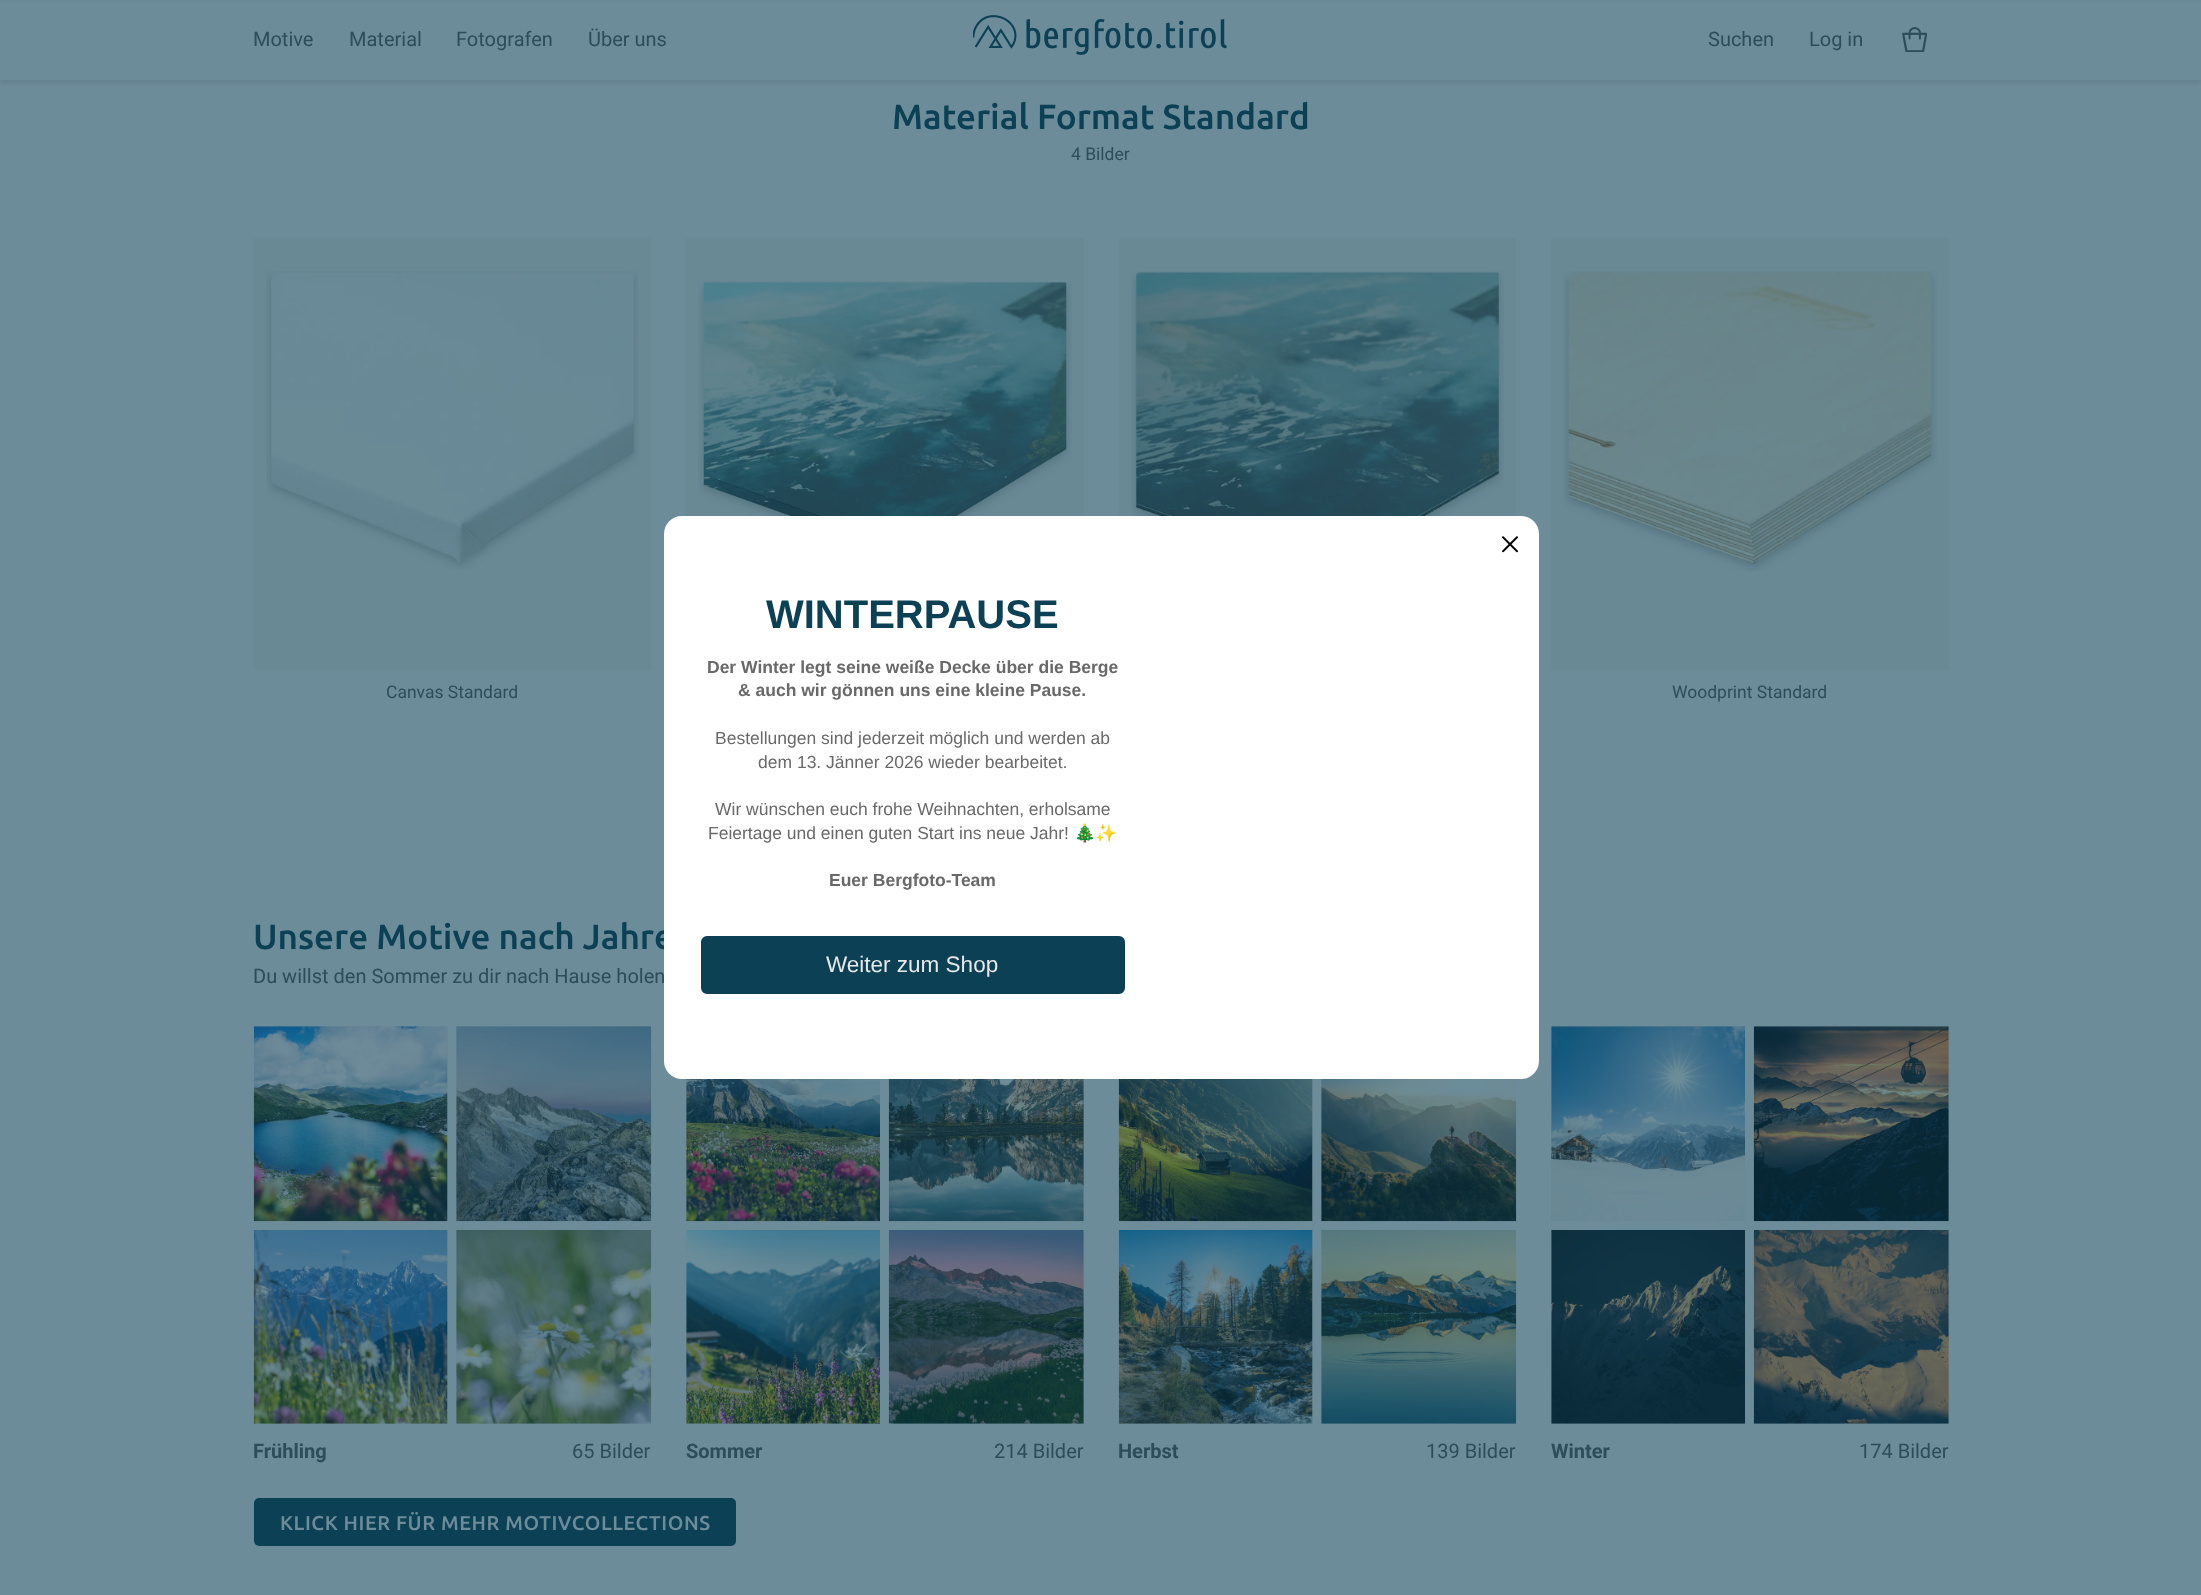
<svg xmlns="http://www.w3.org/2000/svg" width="2201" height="1595">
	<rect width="100%" height="100%" fill="#6D8C99" />
	<rect x="0" y="3" width="2201" height="80" fill="#072633" fill-opacity="0.1" filter="blur(2px)" />
	<rect x="0" y="2" width="2201" height="78" fill="#6D8C99" />
	<g font-family="Roboto" font-size="20" fill="#2D4D5A">
		<text x="253" y="46">Motive</text>
		<text x="349" y="46">Material</text>
		<text x="456" y="46">Fotografen</text>
		<text x="588" y="46">Über uns</text>
	</g>
	<image x="973" y="15" width="254" height="40" href="assets/img1.png" />
	<g font-family="Roboto" font-size="20" fill="#2D4D5A">
		<text x="1708" y="46">Suchen</text>
		<text x="1809" y="46">Log in</text>
	</g>
	<image x="1902" y="27" width="25" height="25" href="assets/img2.png" />
	<text x="892" y="129" font-family="Ubuntu" font-size="35" font-weight="500" fill="#0B4055">Material Format Standard</text>
	<text x="1071" y="160" font-family="Roboto" font-size="17.5" fill="#2D4D5A">4 Bilder</text>
	<rect x="686" y="238" width="398" height="278" fill="#698995" />
	<image x="698" y="281" width="374" height="235" href="assets/img3.png" />
	<rect x="1119" y="238" width="397" height="278" fill="#698995" />
	<image x="1131" y="271" width="373" height="245" href="assets/img4.png" />
	<rect x="254" y="238" width="397" height="432" fill="#698995" />
	<image x="266" y="271" width="373" height="299" href="assets/img5.png" />
	<text x="386" y="698" font-family="Roboto" font-size="17.5" fill="#2D4D5A">Canvas Standard</text>
	<rect x="1551" y="238" width="398" height="432" fill="#698995" />
	<image x="1563" y="271" width="374" height="300" href="assets/img6.png" />
	<text x="1672" y="698" font-family="Roboto" font-size="17.5" fill="#2D4D5A">Woodprint Standard</text>
	<text x="253" y="949" font-family="Ubuntu" font-size="35" font-weight="500" fill="#0B4055">Unsere Motive nach Jahre</text>
	<text x="253" y="983" font-family="Roboto" font-size="20" fill="#2D4D5A">Du willst den Sommer zu dir nach Hause holen</text>
	<rect x="254" y="1026" width="194" height="195" fill="#698995" />
	<image x="253" y="1026" width="195" height="196" href="assets/img7.png" />
	<rect x="456" y="1026" width="195" height="195" fill="#698995" />
	<image x="456" y="1026" width="196" height="196" href="assets/img8.png" />
	<rect x="254" y="1230" width="194" height="194" fill="#698995" />
	<image x="253" y="1230" width="195" height="194" href="assets/img9.png" />
	<rect x="456" y="1230" width="195" height="194" fill="#698995" />
	<image x="456" y="1230" width="196" height="194" href="assets/img10.png" />
	<text x="253" y="1458" font-family="Roboto" font-size="20" font-weight="700" fill="#2D4D5A">Frühling</text>
	<text x="572" y="1458" font-family="Roboto" font-size="20" fill="#2D4D5A">65 Bilder</text>
	<rect x="686" y="1079" width="1" height="142" fill="#698995" />
	<image x="686" y="1079" width="194" height="143" href="assets/img11.png" />
	<rect x="1083" y="1079" width="1" height="142" fill="#698995" />
	<image x="888" y="1079" width="196" height="143" href="assets/img12.png" />
	<rect x="686" y="1230" width="194" height="194" fill="#698995" />
	<image x="686" y="1230" width="194" height="194" href="assets/img13.png" />
	<rect x="889" y="1230" width="195" height="194" fill="#698995" />
	<image x="888" y="1230" width="196" height="194" href="assets/img14.png" />
	<text x="686" y="1458" font-family="Roboto" font-size="20" font-weight="700" fill="#2D4D5A">Sommer</text>
	<text x="994" y="1458" font-family="Roboto" font-size="20" fill="#2D4D5A">214 Bilder</text>
	<rect x="1312" y="1079" width="1" height="142" fill="#698995" />
	<image x="1118" y="1079" width="195" height="143" href="assets/img15.png" />
	<rect x="1321" y="1079" width="1" height="142" fill="#698995" />
	<image x="1321" y="1079" width="196" height="143" href="assets/img16.png" />
	<rect x="1119" y="1230" width="194" height="194" fill="#698995" />
	<image x="1118" y="1230" width="195" height="194" href="assets/img17.png" />
	<rect x="1321" y="1230" width="195" height="194" fill="#698995" />
	<image x="1321" y="1230" width="196" height="194" href="assets/img18.png" />
	<text x="1118" y="1458" font-family="Roboto" font-size="20" font-weight="700" fill="#2D4D5A">Herbst</text>
	<text x="1426" y="1458" font-family="Roboto" font-size="20" fill="#2D4D5A">139 Bilder</text>
	<rect x="1551" y="1026" width="194" height="195" fill="#698995" />
	<image x="1551" y="1026" width="194" height="195" href="assets/img19.png" />
	<rect x="1754" y="1026" width="195" height="195" fill="#698995" />
	<image x="1753" y="1026" width="196" height="196" href="assets/img20.png" />
	<rect x="1551" y="1230" width="194" height="194" fill="#698995" />
	<image x="1551" y="1230" width="194" height="194" href="assets/img21.png" />
	<rect x="1754" y="1230" width="195" height="194" fill="#698995" />
	<image x="1753" y="1230" width="196" height="194" href="assets/img22.png" />
	<text x="1551" y="1458" font-family="Roboto" font-size="20" font-weight="700" fill="#2D4D5A">Winter</text>
	<text x="1859" y="1458" font-family="Roboto" font-size="20" fill="#2D4D5A">174 Bilder</text>
	<rect x="255.5" y="1499.5" width="479" height="45" rx="3.5" fill="#0B4055" stroke="#0B4055" stroke-width="3" />
	<text x="280" y="1530" font-family="Ubuntu" font-size="20" font-weight="500" letter-spacing="0.6" fill="#6D8C99">KLICK HIER FÜR MEHR MOTIVCOLLECTIONS</text>
	<rect x="664" y="516" width="875" height="563" rx="18" fill="#FFFFFF" />
	<image x="1502" y="536" width="16" height="17" href="assets/img23.png" />
	<text x="766" y="628" font-family="Liberation Sans" font-size="40" font-weight="700" fill="#0B4055">WINTERPAUSE</text>
	<g font-family="Liberation Sans" font-size="17.5" font-weight="700" fill="#696969">
		<text x="707" y="673">Der Winter legt seine weiße Decke über die Berge</text>
		<text x="738" y="696">&amp; auch wir gönnen uns eine kleine Pause.</text>
	</g>
	<g font-family="Liberation Sans" font-size="17.5" fill="#696969">
		<text x="715" y="744">Bestellungen sind jederzeit möglich und werden ab</text>
		<text x="758" y="768">dem 13. Jänner 2026 wieder bearbeitet.</text>
		<text x="715" y="815">Wir wünschen euch frohe Weihnachten, erholsame</text>
		<text x="708" y="839">Feiertage und einen guten Start ins neue Jahr!</text>
	</g>
	<text x="1074" y="839" font-family="Noto Color Emoji" font-size="17.5" fill="#696969">🎄✨</text>
	<text x="829" y="886" font-family="Liberation Sans" font-size="17.5" font-weight="700" fill="#696969">Euer Bergfoto-Team</text>
	<rect x="702.5" y="937.5" width="421" height="55" rx="4.5" fill="#0B4055" stroke="#0B4055" stroke-width="3" />
	<text x="826" y="972" font-family="Liberation Sans" font-size="22.5" fill="#E8E8E8">Weiter zum Shop</text>
</svg>
